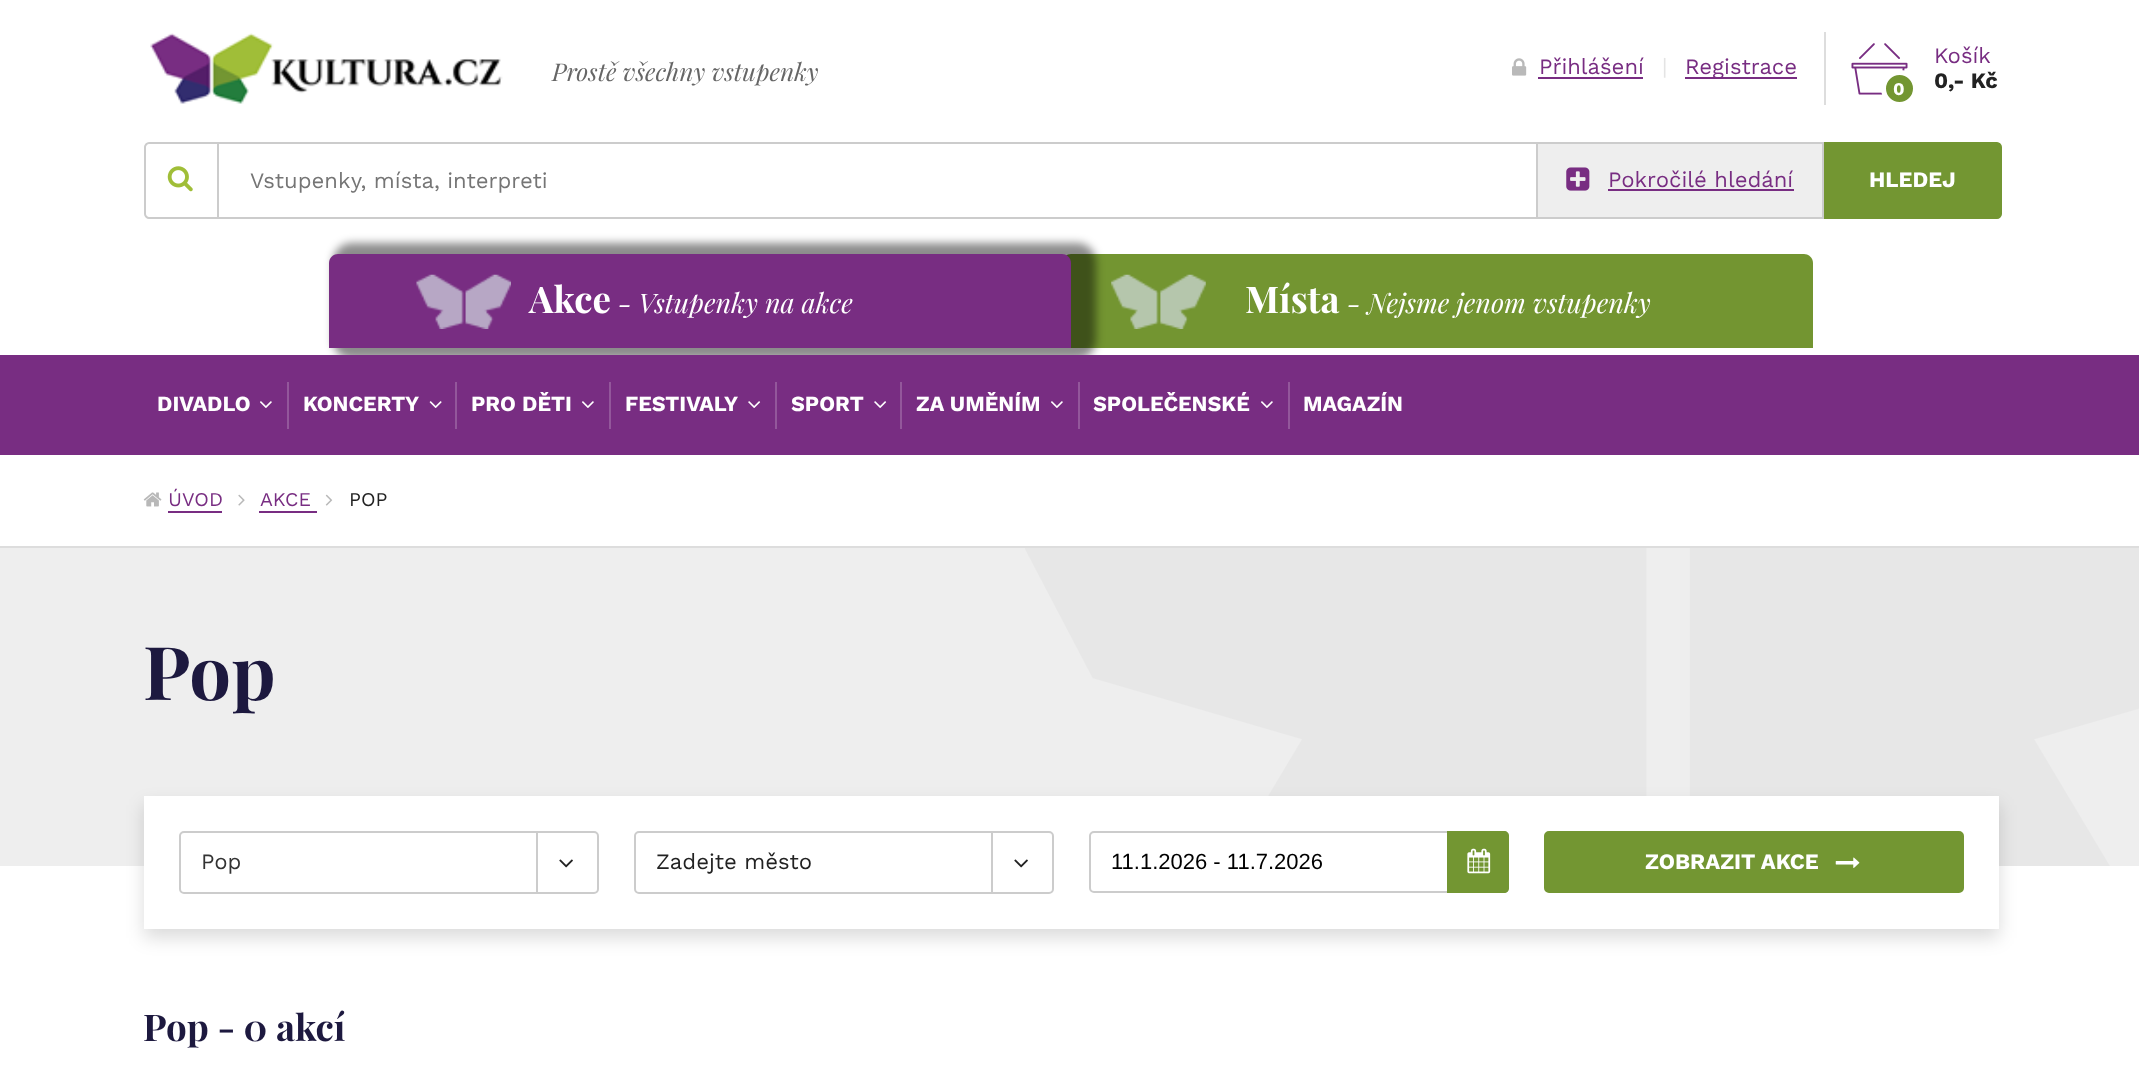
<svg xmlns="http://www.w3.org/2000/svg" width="2139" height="1075">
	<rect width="100%" height="100%" fill="#FFFFFF" />
	<image x="150" y="33" width="353" height="71" href="assets/img1.png" />
	<text x="552" y="81" font-family="Playfair Display" font-size="24.5" font-style="italic" fill="#666666">Prostě všechny vstupenky</text>
	<image x="1512" y="58" width="15" height="18" href="assets/img2.png" />
	<text x="1539" y="74" font-family="Work Sans" font-size="22" fill="#782D82">Přihlášení</text>
	<rect x="1538" y="77" width="105" height="2" fill="#782D82" />
	<text x="1662" y="74" font-family="Work Sans" font-size="22" fill="#E4E4E4">|</text>
	<rect x="1685" y="77" width="112" height="2" fill="#782D82" />
	<text x="1685" y="74" font-family="Work Sans" font-size="22" fill="#782D82">Registrace</text>
	<rect x="1824" y="32" width="2" height="73" fill="#DDDDDD" />
	<image x="1851" y="43" width="57" height="52" href="assets/img3.png" />
	<circle cx="1899.5" cy="88.5" r="16" fill="#739632" stroke="#FFFFFF" stroke-width="5" />
	<text x="1893" y="95" font-family="Work Sans" font-size="18" font-weight="700" fill="#FFFFFF">0</text>
	<text x="1934" y="63" font-family="Work Sans" font-size="22" fill="#782D82">Košík</text>
	<text x="1934" y="88" font-family="Work Sans" font-size="22" font-weight="700" fill="#222222">0,- Kč</text>
	<path d="M149 143H1537V218H149C147 218 145 216 145 214V147C145 145 147 143 149 143Z" fill="none" stroke="#CCCCCC" stroke-width="2" />
	<rect x="217" y="142" width="2" height="77" fill="#CCCCCC" />
	<image x="167" y="166" width="26" height="26" href="assets/img4.png" />
	<text x="250" y="188" font-family="Work Sans" font-size="22" fill="#757575">Vstupenky, místa, interpreti</text>
	<rect x="1538" y="144" width="284" height="73" fill="#EEEEEE" />
	<rect x="1538" y="142" width="286" height="2" fill="#CCCCCC" />
	<rect x="1822" y="142" width="2" height="77" fill="#CCCCCC" />
	<rect x="1538" y="217" width="286" height="2" fill="#CCCCCC" />
	<image x="1566" y="167" width="24" height="24" href="assets/img5.png" />
	<text x="1608" y="187" font-family="Work Sans" font-size="22" fill="#782D82">Pokročilé hledání</text>
	<rect x="1608" y="189" width="186" height="2" fill="#782D82" />
	<path d="M1825 143H1997C1999 143 2001 145 2001 147V214C2001 216 1999 218 1997 218H1825Z" fill="#739632" stroke="#739632" stroke-width="2" />
	<text x="1869" y="187" font-family="Work Sans" font-size="22" font-weight="700" fill="#FFFFFF">HLEDEJ</text>
	<path d="M1071 254H1804C1809 254 1813 258 1813 263V348H1062V263C1062 258 1066 254 1071 254Z" fill="#739531" />
	<rect x="333" y="243" width="763" height="116" rx="19" fill="#000000" fill-opacity="0.45" filter="blur(4.5px)" />
	<path d="M338 254H1062C1067 254 1071 258 1071 263V348H329V263C329 258 333 254 338 254Z" fill="#782D82" />
	<image x="416" y="274" width="95" height="55" href="assets/img6.png" />
	<text x="529" y="313" font-family="Playfair Display" font-size="36.75" font-weight="700" fill="#FFFFFF">Akce</text>
	<text x="618" y="313" font-family="Playfair Display" font-size="27" font-style="italic" fill="#FFFFFF">- Vstupenky na akce</text>
	<image x="1111" y="274" width="95" height="55" href="assets/img7.png" />
	<text x="1245" y="313" font-family="Playfair Display" font-size="36.75" font-weight="700" fill="#FFFFFF">Místa</text>
	<text x="1347" y="313" font-family="Playfair Display" font-size="27" font-style="italic" fill="#FFFFFF">- Nejsme jenom vstupenky</text>
	<rect x="0" y="355" width="2139" height="100" fill="#782D82" />
	<text x="157" y="411" font-family="Work Sans" font-size="21.5" font-weight="700" fill="#FFFFFF">DIVADLO</text>
	<image x="260" y="401" width="12" height="7" href="assets/img8.png" />
	<rect x="287" y="382" width="2" height="47" fill="#93579B" />
	<text x="303" y="411" font-family="Work Sans" font-size="21.5" font-weight="700" fill="#FFFFFF">KONCERTY</text>
	<image x="429" y="401" width="13" height="7" href="assets/img9.png" />
	<rect x="455" y="382" width="2" height="47" fill="#93579B" />
	<text x="471" y="411" font-family="Work Sans" font-size="21.5" font-weight="700" fill="#FFFFFF">PRO DĚTI</text>
	<image x="582" y="401" width="12" height="7" href="assets/img8.png" />
	<rect x="609" y="382" width="2" height="47" fill="#93579B" />
	<text x="625" y="411" font-family="Work Sans" font-size="21.5" font-weight="700" fill="#FFFFFF">FESTIVALY</text>
	<image x="748" y="401" width="13" height="7" href="assets/img10.png" />
	<rect x="775" y="382" width="2" height="47" fill="#93579B" />
	<text x="791" y="411" font-family="Work Sans" font-size="21.5" font-weight="700" fill="#FFFFFF">SPORT</text>
	<image x="874" y="401" width="13" height="7" href="assets/img10.png" />
	<rect x="900" y="382" width="2" height="47" fill="#93579B" />
	<text x="916" y="411" font-family="Work Sans" font-size="21.5" font-weight="700" fill="#FFFFFF">ZA UMĚNÍM</text>
	<image x="1051" y="401" width="12" height="7" href="assets/img8.png" />
	<rect x="1078" y="382" width="2" height="47" fill="#93579B" />
	<text x="1093" y="411" font-family="Work Sans" font-size="21.5" font-weight="700" fill="#FFFFFF">SPOLEČENSKÉ</text>
	<image x="1261" y="401" width="12" height="7" href="assets/img8.png" />
	<rect x="1288" y="382" width="2" height="47" fill="#93579B" />
	<text x="1303" y="411" font-family="Work Sans" font-size="21.5" font-weight="700" fill="#FFFFFF">MAGAZÍN</text>
	<rect x="0" y="546" width="2139" height="2" fill="#DDDDDD" />
	<image x="143" y="492" width="19" height="15" href="assets/img11.png" />
	<text x="168" y="506" font-family="Work Sans" font-size="19.5" fill="#782D82">ÚVOD</text>
	<rect x="168" y="511" width="54" height="2" fill="#782D82" />
	<image x="238" y="494" width="7" height="12" href="assets/img12.png" />
	<text x="260" y="506" font-family="Work Sans" font-size="19.5" fill="#782D82">AKCE</text>
	<rect x="259" y="511" width="58" height="2" fill="#782D82" />
	<image x="325" y="494" width="8" height="12" href="assets/img13.png" />
	<text x="349" y="506" font-family="Work Sans" font-size="19.5" fill="#222222">POP</text>
	<rect x="0" y="548" width="2139" height="318" fill="#EEEEEE" />
	<text x="143" y="700" font-family="Playfair Display" font-size="74" font-weight="700" fill="#1D193F">Pop</text>
	<image x="1025" y="548" width="1114" height="318" href="assets/img14.png" />
	<rect x="144" y="805" width="1855" height="133" fill="#000000" fill-opacity="0.14" filter="blur(9px)" />
	<rect x="144" y="796" width="1855" height="133" fill="#FFFFFF" />
	<rect x="180" y="832" width="418" height="61" rx="4" fill="none" stroke="#CCCCCC" stroke-width="2" />
	<text x="201" y="869" font-family="Work Sans" font-size="22" fill="#333333">Pop</text>
	<rect x="536" y="833" width="2" height="60" fill="#CCCCCC" />
	<image x="559" y="859" width="14" height="9" href="assets/img15.png" />
	<rect x="635" y="832" width="418" height="61" rx="4" fill="none" stroke="#CCCCCC" stroke-width="2" />
	<text x="656" y="869" font-family="Work Sans" font-size="22" fill="#222222">Zadejte město</text>
	<rect x="991" y="833" width="2" height="60" fill="#CCCCCC" />
	<image x="1014" y="859" width="14" height="9" href="assets/img15.png" />
	<rect x="1090" y="832" width="418" height="60" rx="4" fill="none" stroke="#CCCCCC" stroke-width="2" />
	<text x="1111" y="869" font-family="Liberation Sans" font-size="22" fill="#000000">11.1.2026 - 11.7.2026</text>
	<path d="M1447 831H1504C1507 831 1509 833 1509 836V888C1509 891 1507 893 1504 893H1447Z" fill="#739632" />
	<image x="1467" y="848" width="24" height="26" href="assets/img16.png" />
	<rect x="1545" y="832" width="418" height="60" rx="4" fill="#739632" stroke="#739632" stroke-width="2" />
	<text x="1645" y="869" font-family="Work Sans" font-size="22" font-weight="700" fill="#FFFFFF">ZOBRAZIT AKCE</text>
	<image x="1835" y="857" width="25" height="11" href="assets/img17.png" />
	<text x="143" y="1041" font-family="Playfair Display" font-size="36.75" font-weight="700" fill="#1D193F">Pop - 0 akcí</text>
</svg>
